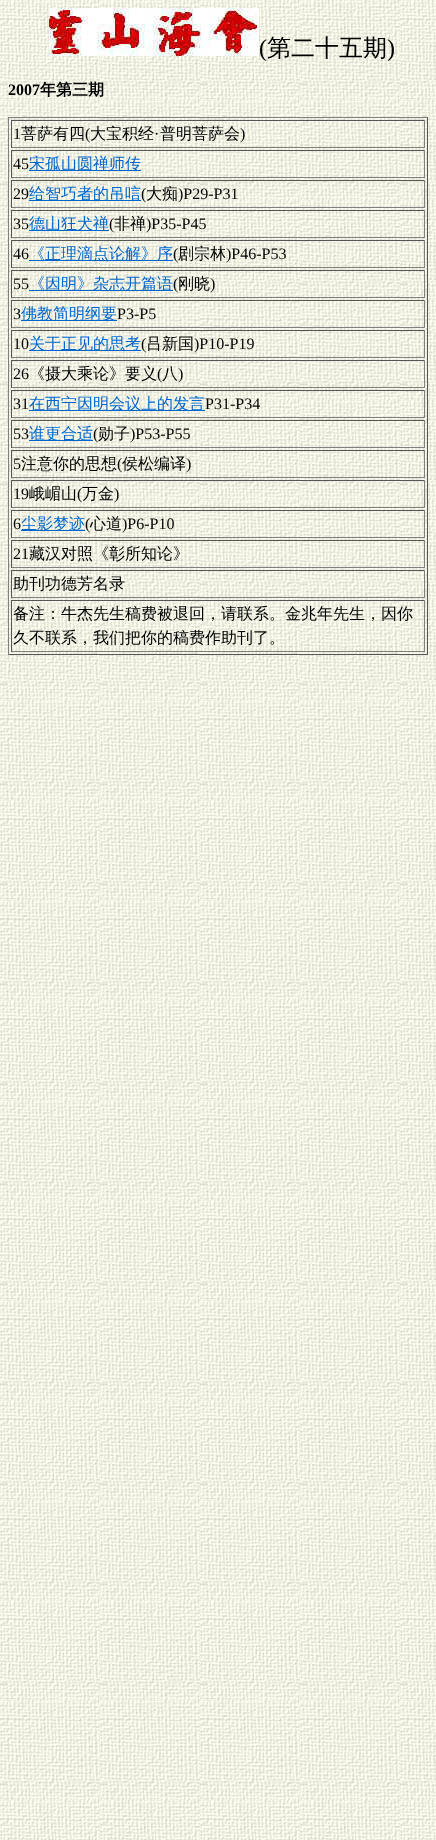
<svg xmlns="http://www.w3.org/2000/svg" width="436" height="1840">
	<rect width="100%" height="100%" fill="#FFFFFF" />
	<image x="0" y="0" width="436" height="1840" href="assets/img1.png" />
	<image x="49" y="8" width="210" height="48" href="assets/img2.png" />
	<text x="259" y="56" font-family="Liberation Serif" font-size="24" fill="#000000">(</text>
	<text x="267" y="56" font-family="WenQuanYi Zen Hei" font-size="24" font-weight="500" fill="#000000">第二十五期</text>
	<text x="387" y="56" font-family="Liberation Serif" font-size="24" fill="#000000">)</text>
	<text x="8" y="95" font-family="Liberation Serif" font-size="16" font-weight="700" fill="#000000">2007</text>
	<text x="40" y="95" font-family="WenQuanYi Zen Hei" font-size="16" font-weight="700" fill="#000000">年第三期</text>
	<rect x="8" y="117" width="420" height="1" fill="#808080" />
	<rect x="427" y="117" width="1" height="538" fill="#555555" />
	<rect x="8" y="654" width="420" height="1" fill="#555555" />
	<rect x="8" y="117" width="1" height="538" fill="#808080" />
	<rect x="11" y="120" width="414" height="1" fill="#555555" />
	<rect x="424" y="120" width="1" height="28" fill="#808080" />
	<rect x="11" y="147" width="414" height="1" fill="#808080" />
	<rect x="11" y="120" width="1" height="28" fill="#555555" />
	<text x="13" y="139" font-family="Liberation Serif" font-size="16" fill="#000000">1</text>
	<text x="21" y="139" font-family="WenQuanYi Zen Hei" font-size="16" font-weight="500" fill="#000000">菩萨有四</text>
	<text x="85" y="139" font-family="Liberation Serif" font-size="16" fill="#000000">(</text>
	<text x="90" y="139" font-family="WenQuanYi Zen Hei" font-size="16" font-weight="500" fill="#000000">大宝积经</text>
	<text x="154" y="139" font-family="Liberation Serif" font-size="16" fill="#000000">·</text>
	<text x="160" y="139" font-family="WenQuanYi Zen Hei" font-size="16" font-weight="500" fill="#000000">普明菩萨会</text>
	<text x="240" y="139" font-family="Liberation Serif" font-size="16" fill="#000000">)</text>
	<rect x="11" y="150" width="414" height="1" fill="#555555" />
	<rect x="424" y="150" width="1" height="28" fill="#808080" />
	<rect x="11" y="177" width="414" height="1" fill="#808080" />
	<rect x="11" y="150" width="1" height="28" fill="#555555" />
	<text x="13" y="169" font-family="Liberation Serif" font-size="16" fill="#000000">45</text>
	<rect x="29" y="170" width="112" height="1" fill="#0066CC" />
	<text x="29" y="169" font-family="WenQuanYi Zen Hei" font-size="16" font-weight="500" fill="#0066CC">宋孤山圆禅师传</text>
	<rect x="11" y="180" width="414" height="1" fill="#555555" />
	<rect x="424" y="180" width="1" height="28" fill="#808080" />
	<rect x="11" y="207" width="414" height="1" fill="#808080" />
	<rect x="11" y="180" width="1" height="28" fill="#555555" />
	<text x="13" y="199" font-family="Liberation Serif" font-size="16" fill="#000000">29</text>
	<rect x="29" y="200" width="112" height="1" fill="#0066CC" />
	<text x="29" y="199" font-family="WenQuanYi Zen Hei" font-size="16" font-weight="500" fill="#0066CC">给智巧者的吊唁</text>
	<text x="141" y="199" font-family="Liberation Serif" font-size="16" fill="#000000">(</text>
	<text x="146" y="199" font-family="WenQuanYi Zen Hei" font-size="16" font-weight="500" fill="#000000">大痴</text>
	<text x="178" y="199" font-family="Liberation Serif" font-size="16" fill="#000000">)P29-P31</text>
	<rect x="11" y="210" width="414" height="1" fill="#555555" />
	<rect x="424" y="210" width="1" height="28" fill="#808080" />
	<rect x="11" y="237" width="414" height="1" fill="#808080" />
	<rect x="11" y="210" width="1" height="28" fill="#555555" />
	<text x="13" y="229" font-family="Liberation Serif" font-size="16" fill="#000000">35</text>
	<rect x="29" y="230" width="80" height="1" fill="#0066CC" />
	<text x="29" y="229" font-family="WenQuanYi Zen Hei" font-size="16" font-weight="500" fill="#0066CC">德山狂犬禅</text>
	<text x="109" y="229" font-family="Liberation Serif" font-size="16" fill="#000000">(</text>
	<text x="114" y="229" font-family="WenQuanYi Zen Hei" font-size="16" font-weight="500" fill="#000000">非禅</text>
	<text x="146" y="229" font-family="Liberation Serif" font-size="16" fill="#000000">)P35-P45</text>
	<rect x="11" y="240" width="414" height="1" fill="#555555" />
	<rect x="424" y="240" width="1" height="28" fill="#808080" />
	<rect x="11" y="267" width="414" height="1" fill="#808080" />
	<rect x="11" y="240" width="1" height="28" fill="#555555" />
	<text x="13" y="259" font-family="Liberation Serif" font-size="16" fill="#000000">46</text>
	<rect x="29" y="260" width="144" height="1" fill="#0066CC" />
	<text x="29" y="259" font-family="WenQuanYi Zen Hei" font-size="16" font-weight="500" fill="#0066CC">《正理滴点论解》序</text>
	<text x="173" y="259" font-family="Liberation Serif" font-size="16" fill="#000000">(</text>
	<text x="178" y="259" font-family="WenQuanYi Zen Hei" font-size="16" font-weight="500" fill="#000000">剧宗林</text>
	<text x="226" y="259" font-family="Liberation Serif" font-size="16" fill="#000000">)P46-P53</text>
	<rect x="11" y="270" width="414" height="1" fill="#555555" />
	<rect x="424" y="270" width="1" height="28" fill="#808080" />
	<rect x="11" y="297" width="414" height="1" fill="#808080" />
	<rect x="11" y="270" width="1" height="28" fill="#555555" />
	<text x="13" y="289" font-family="Liberation Serif" font-size="16" fill="#000000">55</text>
	<rect x="29" y="290" width="144" height="1" fill="#0066CC" />
	<text x="29" y="289" font-family="WenQuanYi Zen Hei" font-size="16" font-weight="500" fill="#0066CC">《因明》杂志开篇语</text>
	<text x="173" y="289" font-family="Liberation Serif" font-size="16" fill="#000000">(</text>
	<text x="178" y="289" font-family="WenQuanYi Zen Hei" font-size="16" font-weight="500" fill="#000000">刚晓</text>
	<text x="210" y="289" font-family="Liberation Serif" font-size="16" fill="#000000">)</text>
	<rect x="11" y="300" width="414" height="1" fill="#555555" />
	<rect x="424" y="300" width="1" height="28" fill="#808080" />
	<rect x="11" y="327" width="414" height="1" fill="#808080" />
	<rect x="11" y="300" width="1" height="28" fill="#555555" />
	<text x="13" y="319" font-family="Liberation Serif" font-size="16" fill="#000000">3</text>
	<rect x="21" y="320" width="96" height="1" fill="#0066CC" />
	<text x="21" y="319" font-family="WenQuanYi Zen Hei" font-size="16" font-weight="500" fill="#0066CC">佛教简明纲要</text>
	<text x="117" y="319" font-family="Liberation Serif" font-size="16" fill="#000000">P3-P5</text>
	<rect x="11" y="330" width="414" height="1" fill="#555555" />
	<rect x="424" y="330" width="1" height="28" fill="#808080" />
	<rect x="11" y="357" width="414" height="1" fill="#808080" />
	<rect x="11" y="330" width="1" height="28" fill="#555555" />
	<text x="13" y="349" font-family="Liberation Serif" font-size="16" fill="#000000">10</text>
	<rect x="29" y="350" width="112" height="1" fill="#0066CC" />
	<text x="29" y="349" font-family="WenQuanYi Zen Hei" font-size="16" font-weight="500" fill="#0066CC">关于正见的思考</text>
	<text x="141" y="349" font-family="Liberation Serif" font-size="16" fill="#000000">(</text>
	<text x="146" y="349" font-family="WenQuanYi Zen Hei" font-size="16" font-weight="500" fill="#000000">吕新国</text>
	<text x="194" y="349" font-family="Liberation Serif" font-size="16" fill="#000000">)P10-P19</text>
	<rect x="11" y="360" width="414" height="1" fill="#555555" />
	<rect x="424" y="360" width="1" height="28" fill="#808080" />
	<rect x="11" y="387" width="414" height="1" fill="#808080" />
	<rect x="11" y="360" width="1" height="28" fill="#555555" />
	<text x="13" y="379" font-family="Liberation Serif" font-size="16" fill="#000000">26</text>
	<text x="29" y="379" font-family="WenQuanYi Zen Hei" font-size="16" font-weight="500" fill="#000000">《摄大乘论》要义</text>
	<text x="157" y="379" font-family="Liberation Serif" font-size="16" fill="#000000">(</text>
	<text x="162" y="379" font-family="WenQuanYi Zen Hei" font-size="16" font-weight="500" fill="#000000">八</text>
	<text x="178" y="379" font-family="Liberation Serif" font-size="16" fill="#000000">)</text>
	<rect x="11" y="390" width="414" height="1" fill="#555555" />
	<rect x="424" y="390" width="1" height="28" fill="#808080" />
	<rect x="11" y="417" width="414" height="1" fill="#808080" />
	<rect x="11" y="390" width="1" height="28" fill="#555555" />
	<text x="13" y="409" font-family="Liberation Serif" font-size="16" fill="#000000">31</text>
	<rect x="29" y="410" width="176" height="1" fill="#0066CC" />
	<text x="29" y="409" font-family="WenQuanYi Zen Hei" font-size="16" font-weight="500" fill="#0066CC">在西宁因明会议上的发言</text>
	<text x="205" y="409" font-family="Liberation Serif" font-size="16" fill="#000000">P31-P34</text>
	<rect x="11" y="420" width="414" height="1" fill="#555555" />
	<rect x="424" y="420" width="1" height="28" fill="#808080" />
	<rect x="11" y="447" width="414" height="1" fill="#808080" />
	<rect x="11" y="420" width="1" height="28" fill="#555555" />
	<text x="13" y="439" font-family="Liberation Serif" font-size="16" fill="#000000">53</text>
	<rect x="29" y="440" width="64" height="1" fill="#0066CC" />
	<text x="29" y="439" font-family="WenQuanYi Zen Hei" font-size="16" font-weight="500" fill="#0066CC">谁更合适</text>
	<text x="93" y="439" font-family="Liberation Serif" font-size="16" fill="#000000">(</text>
	<text x="98" y="439" font-family="WenQuanYi Zen Hei" font-size="16" font-weight="500" fill="#000000">勋子</text>
	<text x="130" y="439" font-family="Liberation Serif" font-size="16" fill="#000000">)P53-P55</text>
	<rect x="11" y="450" width="414" height="1" fill="#555555" />
	<rect x="424" y="450" width="1" height="28" fill="#808080" />
	<rect x="11" y="477" width="414" height="1" fill="#808080" />
	<rect x="11" y="450" width="1" height="28" fill="#555555" />
	<text x="13" y="469" font-family="Liberation Serif" font-size="16" fill="#000000">5</text>
	<text x="21" y="469" font-family="WenQuanYi Zen Hei" font-size="16" font-weight="500" fill="#000000">注意你的思想</text>
	<text x="117" y="469" font-family="Liberation Serif" font-size="16" fill="#000000">(</text>
	<text x="122" y="469" font-family="WenQuanYi Zen Hei" font-size="16" font-weight="500" fill="#000000">侯松编译</text>
	<text x="186" y="469" font-family="Liberation Serif" font-size="16" fill="#000000">)</text>
	<rect x="11" y="480" width="414" height="1" fill="#555555" />
	<rect x="424" y="480" width="1" height="28" fill="#808080" />
	<rect x="11" y="507" width="414" height="1" fill="#808080" />
	<rect x="11" y="480" width="1" height="28" fill="#555555" />
	<text x="13" y="499" font-family="Liberation Serif" font-size="16" fill="#000000">19</text>
	<text x="29" y="499" font-family="WenQuanYi Zen Hei" font-size="16" font-weight="500" fill="#000000">峨嵋山</text>
	<text x="77" y="499" font-family="Liberation Serif" font-size="16" fill="#000000">(</text>
	<text x="82" y="499" font-family="WenQuanYi Zen Hei" font-size="16" font-weight="500" fill="#000000">万金</text>
	<text x="114" y="499" font-family="Liberation Serif" font-size="16" fill="#000000">)</text>
	<rect x="11" y="510" width="414" height="1" fill="#555555" />
	<rect x="424" y="510" width="1" height="28" fill="#808080" />
	<rect x="11" y="537" width="414" height="1" fill="#808080" />
	<rect x="11" y="510" width="1" height="28" fill="#555555" />
	<text x="13" y="529" font-family="Liberation Serif" font-size="16" fill="#000000">6</text>
	<rect x="21" y="530" width="64" height="1" fill="#0066CC" />
	<text x="21" y="529" font-family="WenQuanYi Zen Hei" font-size="16" font-weight="500" fill="#0066CC">尘影梦迹</text>
	<text x="85" y="529" font-family="Liberation Serif" font-size="16" fill="#000000">(</text>
	<text x="90" y="529" font-family="WenQuanYi Zen Hei" font-size="16" font-weight="500" fill="#000000">心道</text>
	<text x="122" y="529" font-family="Liberation Serif" font-size="16" fill="#000000">)P6-P10</text>
	<rect x="11" y="540" width="414" height="1" fill="#555555" />
	<rect x="424" y="540" width="1" height="28" fill="#808080" />
	<rect x="11" y="567" width="414" height="1" fill="#808080" />
	<rect x="11" y="540" width="1" height="28" fill="#555555" />
	<text x="13" y="559" font-family="Liberation Serif" font-size="16" fill="#000000">21</text>
	<text x="29" y="559" font-family="WenQuanYi Zen Hei" font-size="16" font-weight="500" fill="#000000">藏汉对照《彰所知论》</text>
	<rect x="11" y="570" width="414" height="1" fill="#555555" />
	<rect x="424" y="570" width="1" height="28" fill="#808080" />
	<rect x="11" y="597" width="414" height="1" fill="#808080" />
	<rect x="11" y="570" width="1" height="28" fill="#555555" />
	<text x="13" y="589" font-family="WenQuanYi Zen Hei" font-size="16" font-weight="500" fill="#000000">助刊功德芳名录</text>
	<rect x="11" y="600" width="414" height="1" fill="#555555" />
	<rect x="424" y="600" width="1" height="52" fill="#808080" />
	<rect x="11" y="651" width="414" height="1" fill="#808080" />
	<rect x="11" y="600" width="1" height="52" fill="#555555" />
	<g font-family="WenQuanYi Zen Hei" font-size="16" font-weight="500" fill="#000000">
		<text x="13" y="619">备注：牛杰先生稿费被退回，请联系。金兆年先生，因你</text>
		<text x="13" y="643">久不联系，我们把你的稿费作助刊了。</text>
	</g>
</svg>
